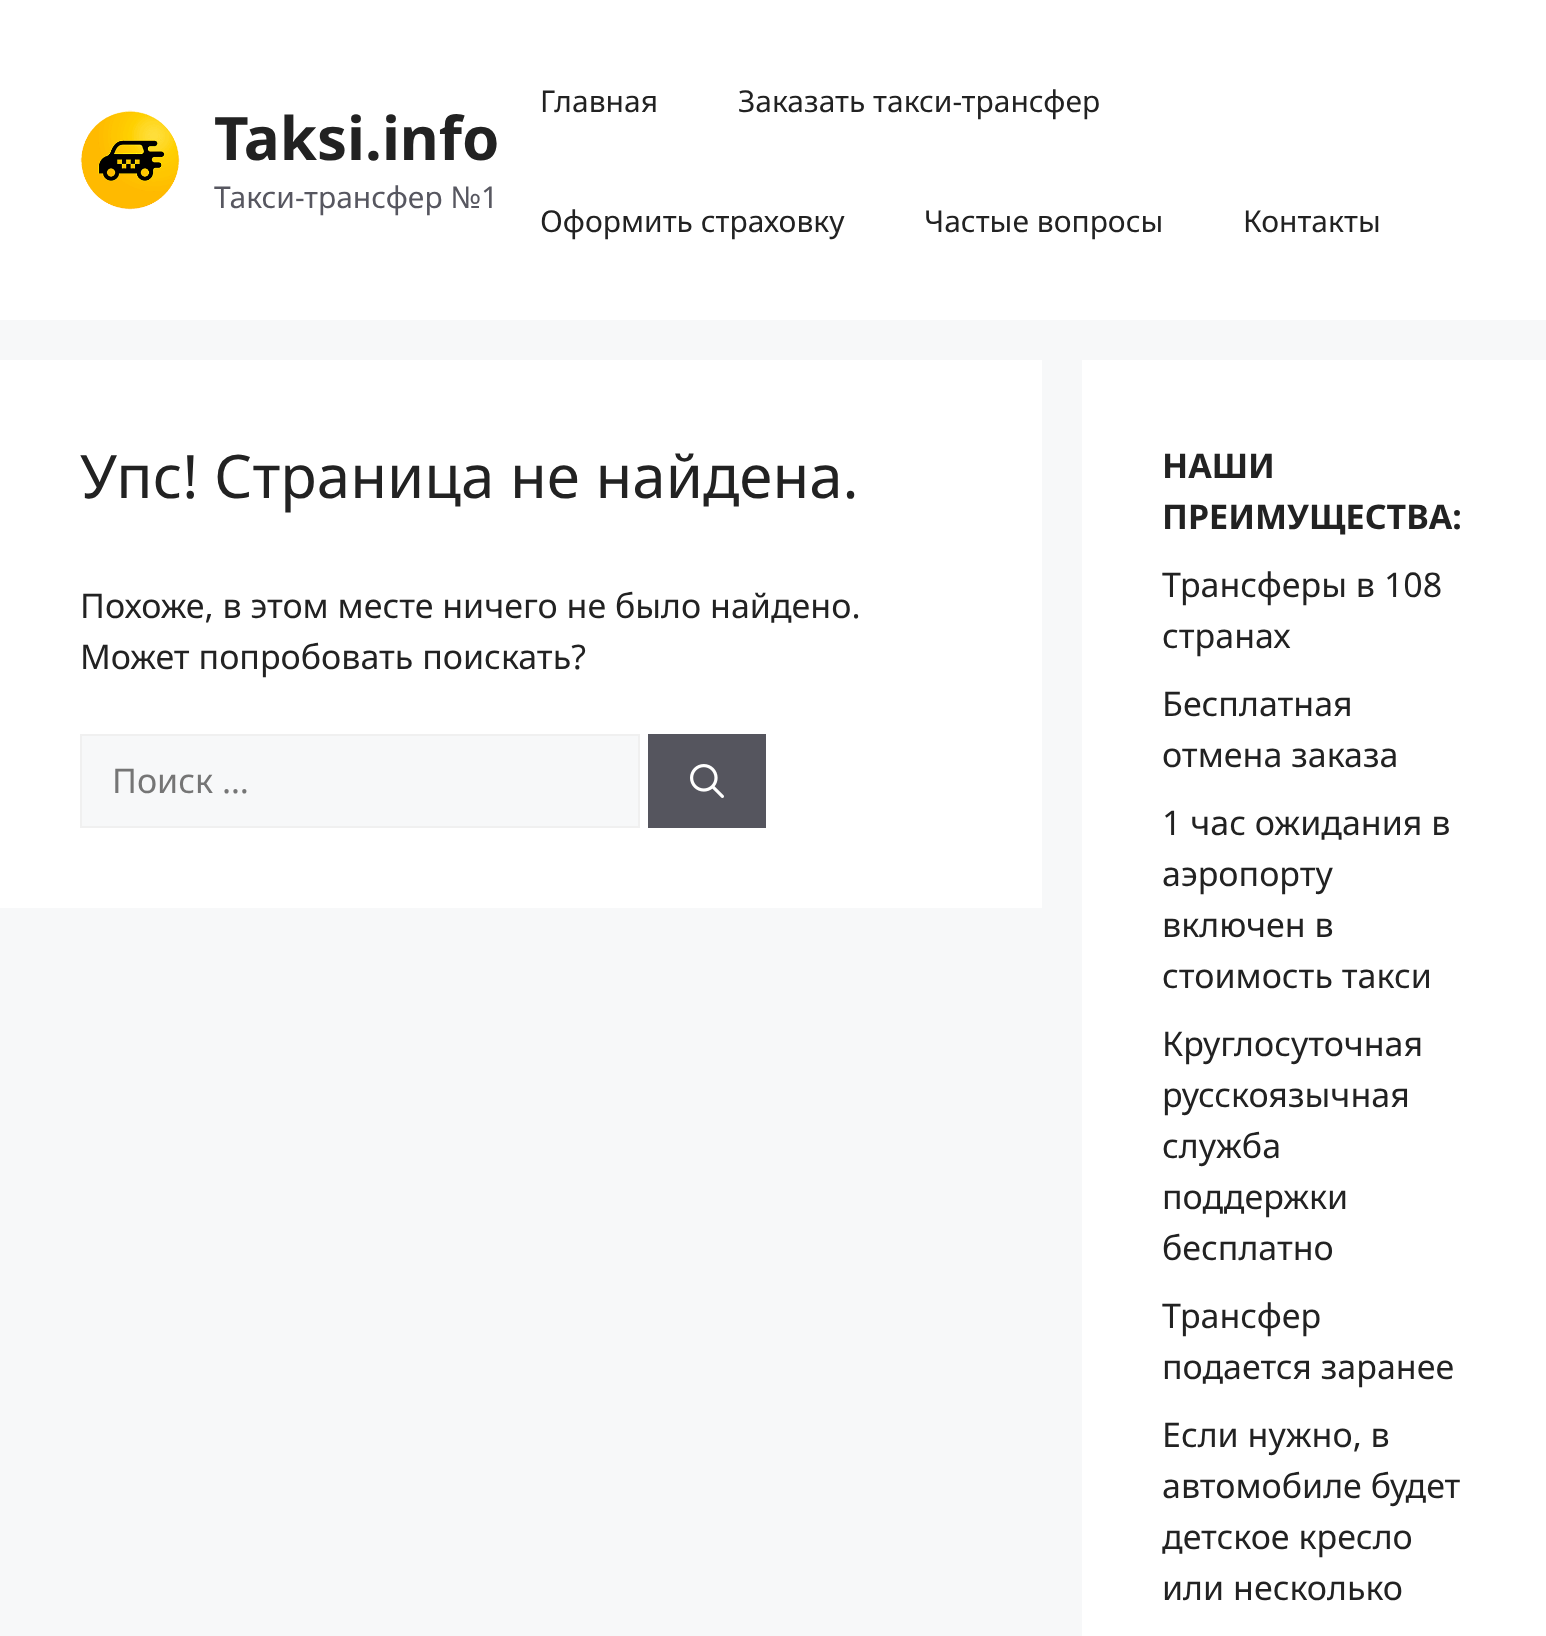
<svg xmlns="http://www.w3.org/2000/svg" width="1546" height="1636">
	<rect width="100%" height="100%" fill="#F7F8F9" />
	<rect x="0" y="0" width="1546" height="320" fill="#FFFFFF" />
	<image x="80" y="110" width="100" height="100" href="assets/img1.png" />
	<text x="214" y="160" font-family="Noto Sans" font-size="60" font-weight="700" fill="#222222">Taksi.info</text>
	<text x="214" y="208" font-family="Noto Sans" font-size="30" fill="#575760">Такси-трансфер №1</text>
	<g font-family="Noto Sans" font-size="30" fill="#222222">
		<text x="540" y="112">Главная</text>
		<text x="738" y="112">Заказать такси-трансфер</text>
		<text x="540" y="232">Оформить страховку</text>
		<text x="924" y="232">Частые вопросы</text>
		<text x="1243" y="232">Контакты</text>
	</g>
	<rect x="0" y="360" width="1042" height="548" fill="#FFFFFF" />
	<text x="80" y="498" font-family="Noto Sans" font-size="60" fill="#222222">Упс! Страница не найдена.</text>
	<g font-family="Noto Sans" font-size="34" fill="#222222">
		<text x="80" y="618">Похоже, в этом месте ничего не было найдено.</text>
		<text x="80" y="669">Может попробовать поискать?</text>
	</g>
	<rect x="81" y="735" width="558" height="92" fill="#F7F8F9" stroke="#F0F0F0" stroke-width="2" />
	<text x="112" y="793" font-family="Noto Sans" font-size="34" fill="#757575">Поиск …</text>
	<rect x="648" y="734" width="118" height="94" fill="#55555E" />
	<image x="690" y="764" width="34" height="34" href="assets/img2.png" />
	<rect x="1082" y="360" width="464" height="1276" fill="#FFFFFF" />
	<g font-family="Noto Sans" font-size="34" font-weight="700" fill="#222222">
		<text x="1162" y="478">НАШИ</text>
		<text x="1162" y="529">ПРЕИМУЩЕСТВА:</text>
	</g>
	<g font-family="Noto Sans" font-size="34" fill="#222222">
		<text x="1162" y="597">Трансферы в 108</text>
		<text x="1162" y="648">странах</text>
		<text x="1162" y="716">Бесплатная</text>
		<text x="1162" y="767">отмена заказа</text>
		<text x="1162" y="835">1 час ожидания в</text>
		<text x="1162" y="886">аэропорту</text>
		<text x="1162" y="937">включен в</text>
		<text x="1162" y="988">стоимость такси</text>
		<text x="1162" y="1056">Круглосуточная</text>
		<text x="1162" y="1107">русскоязычная</text>
		<text x="1162" y="1158">служба</text>
		<text x="1162" y="1209">поддержки</text>
		<text x="1162" y="1260">бесплатно</text>
		<text x="1162" y="1328">Трансфер</text>
		<text x="1162" y="1379">подается заранее</text>
		<text x="1162" y="1447">Если нужно, в</text>
		<text x="1162" y="1498">автомобиле будет</text>
		<text x="1162" y="1549">детское кресло</text>
		<text x="1162" y="1600">или несколько</text>
	</g>
</svg>
